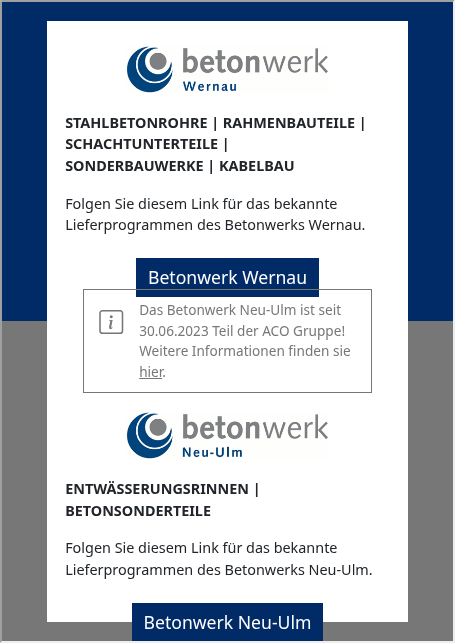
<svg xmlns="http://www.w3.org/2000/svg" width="455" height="643">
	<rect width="100%" height="100%" fill="#FFFFFF" />
	<path d="M0 0H455L453 2H2Z" fill="#9F9F9F" />
	<path d="M455 0V643L453 641V2Z" fill="#EEEEEE" />
	<path d="M455 643H0L2 641H453Z" fill="#EEEEEE" />
	<path d="M0 643V0L2 2V641Z" fill="#9F9F9F" />
	<image x="2" y="2" width="451" height="639" href="assets/img1.png" />
</svg>
